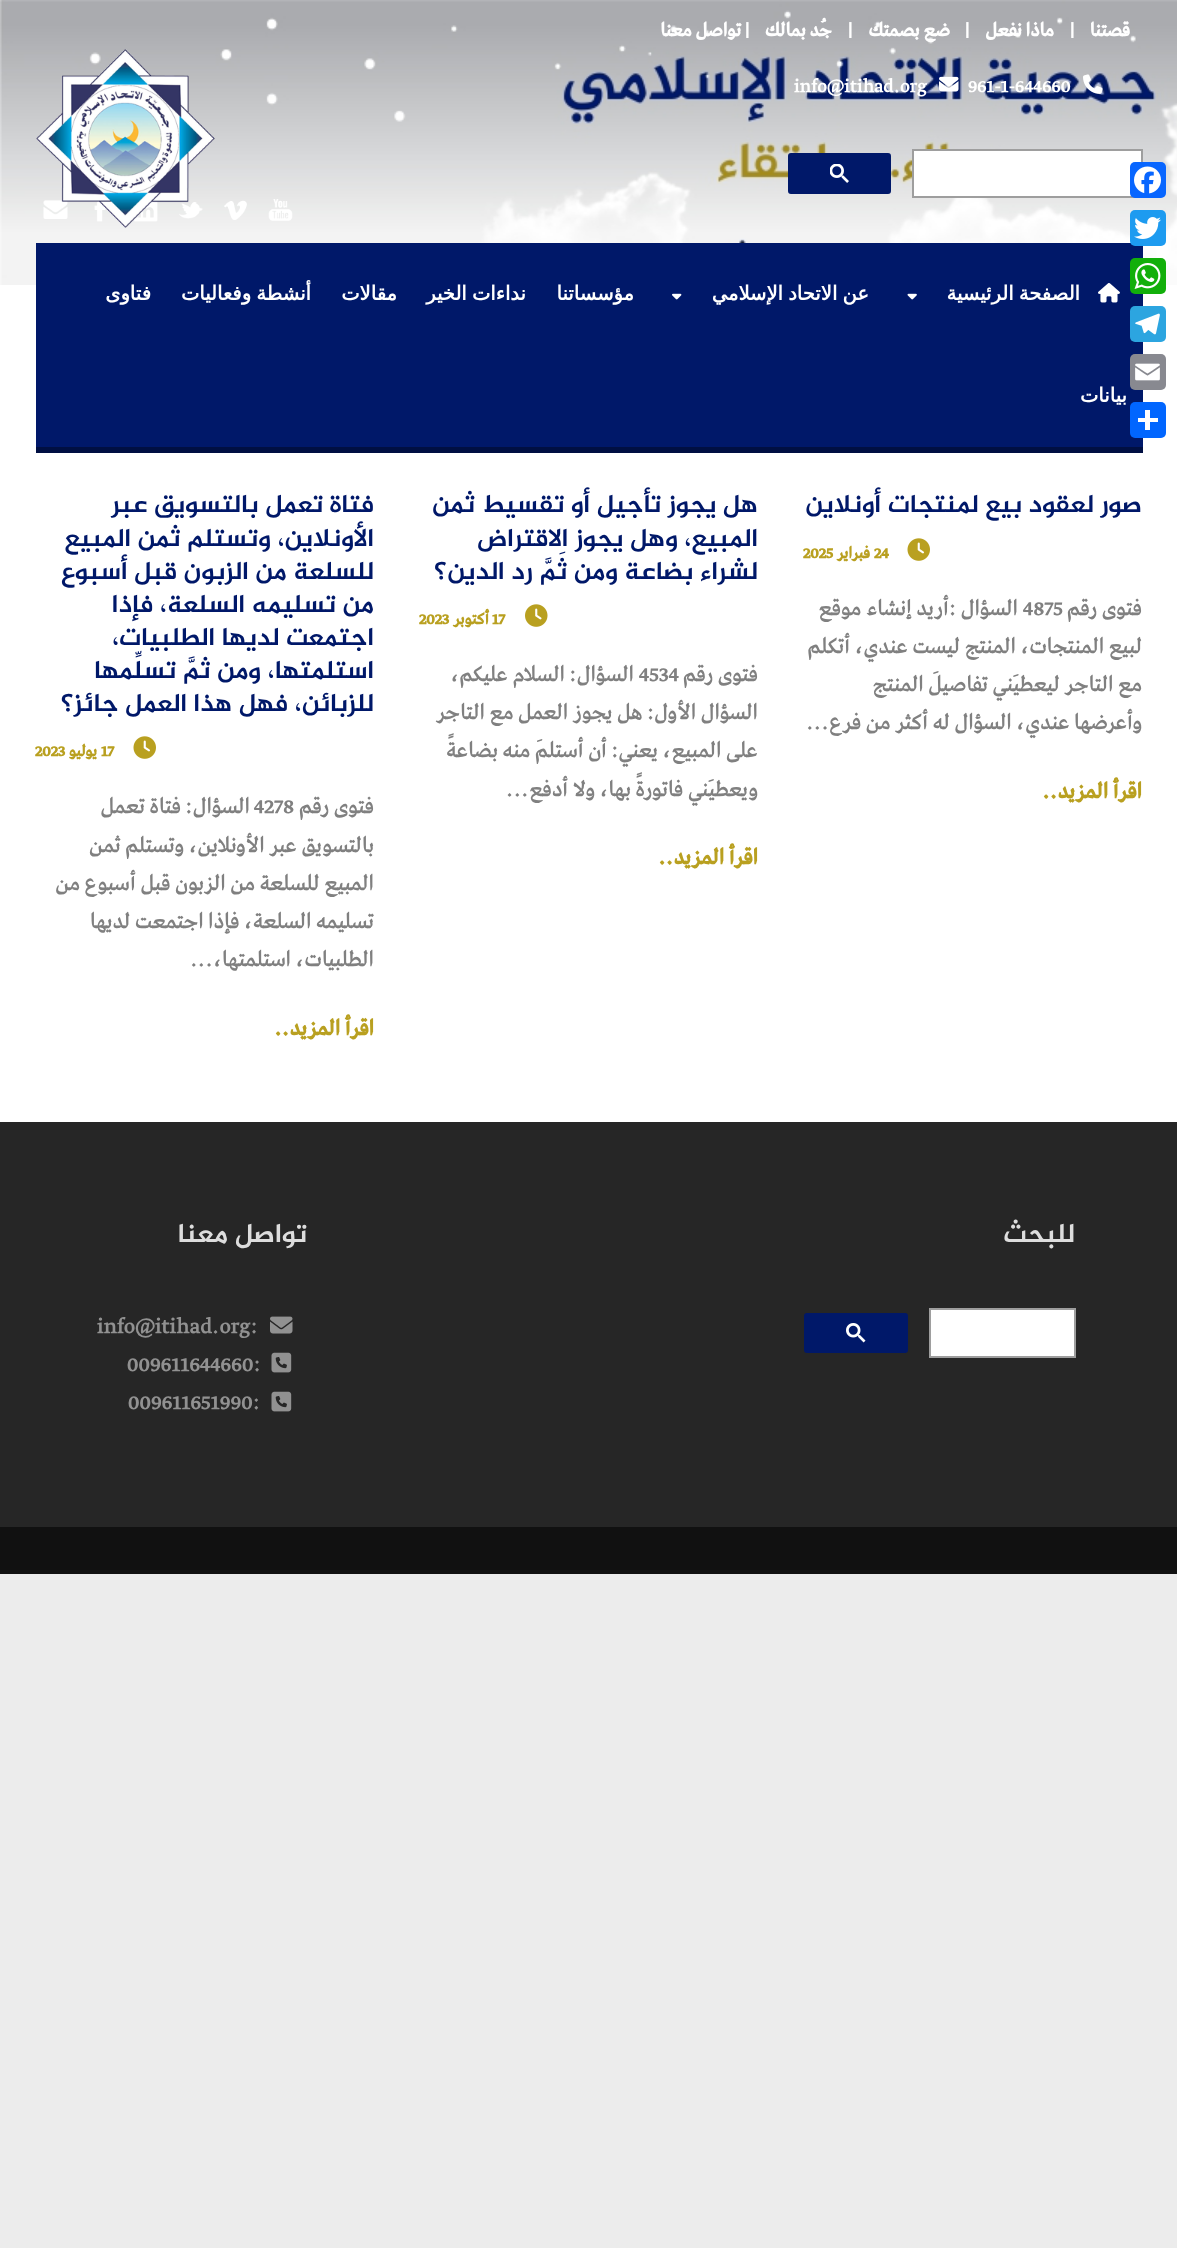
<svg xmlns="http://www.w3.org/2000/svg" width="1177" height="2248">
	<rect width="100%" height="100%" fill="#ECECEC" />
	<image x="0" y="0" width="1177" height="285" href="assets/img6.png" />
	<rect x="913" y="150" width="229" height="47" fill="#FFFFFF" stroke="#9E9E9E" stroke-width="2" />
	<rect x="1130" y="162" width="36" height="36" rx="5" fill="#0866FF" />
	<image x="1134" y="166" width="27" height="28" href="assets/img1.png" />
	<rect x="0" y="285" width="1177" height="837" fill="#FFFFFF" />
	<rect x="36" y="243" width="1107" height="204" fill="#001869" />
	<rect x="1130" y="210" width="36" height="36" rx="5" fill="#1D9BF0" />
	<image x="1134" y="217" width="27" height="22" href="assets/img2.png" />
	<rect x="1130" y="258" width="36" height="36" rx="5" fill="#12AF0A" />
	<image x="1134" y="263" width="27" height="26" href="assets/img3.png" />
	<rect x="1130" y="306" width="36" height="36" rx="5" fill="#2CA5E0" />
	<image x="1135" y="313" width="25" height="22" href="assets/img4.png" />
	<rect x="1130" y="354" width="36" height="36" rx="5" fill="#888990" />
	<image x="1135" y="363" width="25" height="18" href="assets/img5.png" />
	<rect x="1130" y="402" width="36" height="36" rx="5" fill="#0166FF" />
	<rect x="1145" y="410" width="5" height="20" fill="#FFFFFF" />
	<rect x="1138" y="418" width="20" height="4" fill="#FFFFFF" />
	<text x="1130" y="36" font-family="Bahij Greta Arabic" font-size="19.5" font-weight="700" direction="rtl" fill="#FFFFFF">قصتنا</text>
	<text x="1070" y="36" font-family="Bahij Greta Arabic" font-size="19.5" font-weight="700" fill="#FFFFFF">|</text>
	<text x="1054" y="36" font-family="Bahij Greta Arabic" font-size="19.5" font-weight="700" direction="rtl" fill="#FFFFFF">ماذا نفعل</text>
	<text x="965" y="36" font-family="Bahij Greta Arabic" font-size="19.5" font-weight="700" fill="#FFFFFF">|</text>
	<text x="950" y="36" font-family="Bahij Greta Arabic" font-size="19.5" font-weight="700" direction="rtl" fill="#FFFFFF">ضع بصمتك</text>
	<text x="848" y="36" font-family="Bahij Greta Arabic" font-size="19.5" font-weight="700" fill="#FFFFFF">|</text>
	<text x="832" y="36" font-family="Bahij Greta Arabic" font-size="19.5" font-weight="700" direction="rtl" fill="#FFFFFF">جُد بمالك</text>
	<text x="745" y="36" font-family="Bahij Greta Arabic" font-size="19.5" font-weight="700" fill="#FFFFFF">|</text>
	<text x="741" y="36" font-family="Bahij Greta Arabic" font-size="19.5" font-weight="700" direction="rtl" fill="#FFFFFF">تواصل معنا</text>
	<image x="1083" y="74" width="20" height="20" href="assets/img7.png" />
	<text x="968" y="92" font-family="Bahij Greta Arabic" font-size="19.5" font-weight="500" fill="#FFFFFF">961-1-644660</text>
	<image x="939" y="76" width="20" height="16" href="assets/img8.png" />
	<text x="794" y="92" font-family="Bahij Greta Arabic" font-size="19.5" font-weight="500" fill="#FFFFFF">info@itihad.org</text>
	<image x="179" y="202" width="24" height="17" href="assets/img13.png" />
	<image x="133" y="201" width="25" height="21" href="assets/img14.png" />
	<image x="94" y="201" width="12" height="21" href="assets/img15.png" />
	<image x="43" y="200" width="25" height="19" href="assets/img16.png" />
	<image x="36" y="49" width="179" height="179" href="assets/img9.png" />
	<rect x="789" y="154" width="101" height="39" rx="2" fill="#001869" stroke="#001869" stroke-width="2" />
	<image x="830" y="164" width="19" height="19" href="assets/img10.png" />
	<rect x="36" y="447" width="1107" height="6" fill="#000F42" />
	<image x="268" y="199" width="25" height="22" href="assets/img11.png" />
	<image x="224" y="200" width="23" height="20" href="assets/img12.png" />
	<image x="1098" y="283" width="22" height="20" href="assets/img17.png" />
	<text x="1080" y="300" word-spacing="-1" font-family="DejaVu Sans" font-size="19.5" font-weight="700" direction="rtl" fill="#FFFFFF">الصفحة الرئيسية</text>
	<image x="907" y="293" width="10" height="7" href="assets/img18.png" />
	<text x="869" y="300" word-spacing="-1" font-family="DejaVu Sans" font-size="19.5" font-weight="700" direction="rtl" fill="#FFFFFF">عن الاتحاد الإسلامي</text>
	<image x="672" y="293" width="10" height="7" href="assets/img19.png" />
	<g font-family="DejaVu Sans" font-size="19.5" font-weight="700" direction="rtl" fill="#FFFFFF">
		<text x="634" y="300">مؤسساتنا</text>
		<text x="526" y="300" word-spacing="-1">نداءات الخير</text>
		<text x="397" y="300">مقالات</text>
		<text x="311" y="300" word-spacing="-1">أنشطة وفعاليات</text>
		<text x="151" y="300">فتاوى</text>
		<text x="1127" y="402">بيانات</text>
	</g>
	<text x="1142" y="512" font-family="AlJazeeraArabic" font-size="25.5" font-weight="700" direction="rtl" fill="#001869">صور لعقود بيع لمنتجات أونلاين</text>
	<image x="907" y="538" width="23" height="23" href="assets/img20.png" />
	<text x="874" y="558" font-family="Bahij Greta Arabic" font-size="16.5" font-weight="700" fill="#B9A020">24</text>
	<text x="870" y="558" font-family="Bahij Greta Arabic" font-size="16.5" font-weight="700" direction="rtl" fill="#B9A020">فبراير</text>
	<text x="803" y="558" font-family="Bahij Greta Arabic" font-size="16.5" font-weight="700" fill="#B9A020">2025</text>
	<text x="1142" y="615" font-family="Bahij Greta Arabic" font-size="22.5" font-weight="500" direction="rtl" fill="#808080">فتوى رقم</text>
	<text x="1023" y="615" font-family="Bahij Greta Arabic" font-size="22.5" font-weight="500" fill="#808080">4875</text>
	<g font-family="Bahij Greta Arabic" font-size="22.5" font-weight="500" direction="rtl" fill="#808080">
		<text x="1018" y="615">السؤال :أريد إنشاء موقع</text>
		<text x="1142" y="653">لبيع المنتجات، المنتج ليست عندي، أتكلم</text>
		<text x="1142" y="691">مع التاجر ليعطيَني تفاصيلَ المنتج</text>
		<text x="1142" y="729">وأعرضها عندي، السؤال له أكثر من فرع...</text>
	</g>
	<text x="1142" y="798" font-family="Bahij Greta Arabic" font-size="22.5" font-weight="700" direction="rtl" fill="#B9A020">اقرأ المزيد..</text>
	<g font-family="AlJazeeraArabic" font-size="25.5" font-weight="700" direction="rtl" fill="#001869">
		<text x="758" y="512">هل يجوز تأجيل أو تقسيط ثمن</text>
		<text x="758" y="546">المبيع، وهل يجوز الاقتراض</text>
		<text x="758" y="579">لشراء بضاعة ومن ثَمَّ رد الدين؟</text>
	</g>
	<image x="525" y="604" width="23" height="23" href="assets/img21.png" />
	<text x="492" y="624" font-family="Bahij Greta Arabic" font-size="16.5" font-weight="700" fill="#B9A020">17</text>
	<text x="489" y="624" font-family="Bahij Greta Arabic" font-size="16.5" font-weight="700" direction="rtl" fill="#B9A020">أكتوبر</text>
	<text x="419" y="624" font-family="Bahij Greta Arabic" font-size="16.5" font-weight="700" fill="#B9A020">2023</text>
	<text x="758" y="681" font-family="Bahij Greta Arabic" font-size="22.5" font-weight="500" direction="rtl" fill="#808080">فتوى رقم</text>
	<text x="639" y="681" font-family="Bahij Greta Arabic" font-size="22.5" font-weight="500" fill="#808080">4534</text>
	<g font-family="Bahij Greta Arabic" font-size="22.5" font-weight="500" direction="rtl" fill="#808080">
		<text x="634" y="681">السؤال: السلام عليكم،</text>
		<text x="758" y="719">السؤال الأول: هل يجوز العمل مع التاجر</text>
		<text x="758" y="757">على المبيع، يعني: أن أستلمَ منه بضاعةً</text>
		<text x="758" y="796">ويعطيَني فاتورةً بها، ولا أدفع...</text>
	</g>
	<text x="758" y="864" font-family="Bahij Greta Arabic" font-size="22.5" font-weight="700" direction="rtl" fill="#B9A020">اقرأ المزيد..</text>
	<g font-family="AlJazeeraArabic" font-size="25.5" font-weight="700" direction="rtl" fill="#001869">
		<text x="374" y="512">فتاة تعمل بالتسويق عبر</text>
		<text x="374" y="546">الأونلاين، وتستلم ثمن المبيع</text>
		<text x="374" y="579">للسلعة من الزبون قبل أسبوع</text>
		<text x="374" y="612">من تسليمه السلعة، فإذا</text>
		<text x="374" y="645">اجتمعت لديها الطلبيات،</text>
		<text x="374" y="678">استلمتها، ومن ثمَّ تسلِّمها</text>
		<text x="374" y="711">للزبائن، فهل هذا العمل جائز؟</text>
	</g>
	<image x="133" y="736" width="23" height="23" href="assets/img20.png" />
	<text x="101" y="756" font-family="Bahij Greta Arabic" font-size="16.5" font-weight="700" fill="#B9A020">17</text>
	<text x="97" y="756" font-family="Bahij Greta Arabic" font-size="16.5" font-weight="700" direction="rtl" fill="#B9A020">يوليو</text>
	<text x="35" y="756" font-family="Bahij Greta Arabic" font-size="16.5" font-weight="700" fill="#B9A020">2023</text>
	<text x="374" y="813" font-family="Bahij Greta Arabic" font-size="22.5" font-weight="500" direction="rtl" fill="#808080">فتوى رقم</text>
	<text x="254" y="813" font-family="Bahij Greta Arabic" font-size="22.5" font-weight="500" fill="#808080">4278</text>
	<g font-family="Bahij Greta Arabic" font-size="22.5" font-weight="500" direction="rtl" fill="#808080">
		<text x="250" y="813">السؤال: فتاة تعمل</text>
		<text x="374" y="852">بالتسويق عبر الأونلاين، وتستلم ثمن</text>
		<text x="374" y="890">المبيع للسلعة من الزبون قبل أسبوع من</text>
		<text x="374" y="928">تسليمه السلعة، فإذا اجتمعت لديها</text>
		<text x="374" y="966">الطلبيات، استلمتها،...</text>
	</g>
	<text x="374" y="1035" font-family="Bahij Greta Arabic" font-size="22.5" font-weight="700" direction="rtl" fill="#B9A020">اقرأ المزيد..</text>
	<rect x="0" y="1122" width="1177" height="405" fill="#262626" />
	<text x="1075" y="1242" font-family="AlJazeeraArabic" font-size="27" font-weight="700" direction="rtl" fill="#DDDDDD">للبحث</text>
	<rect x="930" y="1309" width="145" height="48" fill="#FFFFFF" stroke="#9E9E9E" stroke-width="2" />
	<rect x="805" y="1314" width="102" height="38" rx="2" fill="#001869" stroke="#001869" stroke-width="2" />
	<image x="846" y="1323" width="20" height="20" href="assets/img22.png" />
	<text x="307" y="1242" font-family="AlJazeeraArabic" font-size="27" font-weight="700" direction="rtl" fill="#DDDDDD">تواصل معنا</text>
	<image x="270" y="1316" width="23" height="18" href="assets/img23.png" />
	<text x="97" y="1333" font-family="Bahij Greta Arabic" font-size="22.5" font-weight="500" fill="#919191">info@itihad.org:</text>
	<image x="271" y="1352" width="21" height="21" href="assets/img24.png" />
	<text x="127" y="1371" font-family="Bahij Greta Arabic" font-size="22.5" font-weight="500" fill="#919191">009611644660:</text>
	<image x="271" y="1391" width="21" height="21" href="assets/img24.png" />
	<text x="128" y="1409" font-family="Bahij Greta Arabic" font-size="22.5" font-weight="500" fill="#919191">009611651990:</text>
	<rect x="0" y="1527" width="1177" height="47" fill="#111111" />
</svg>
